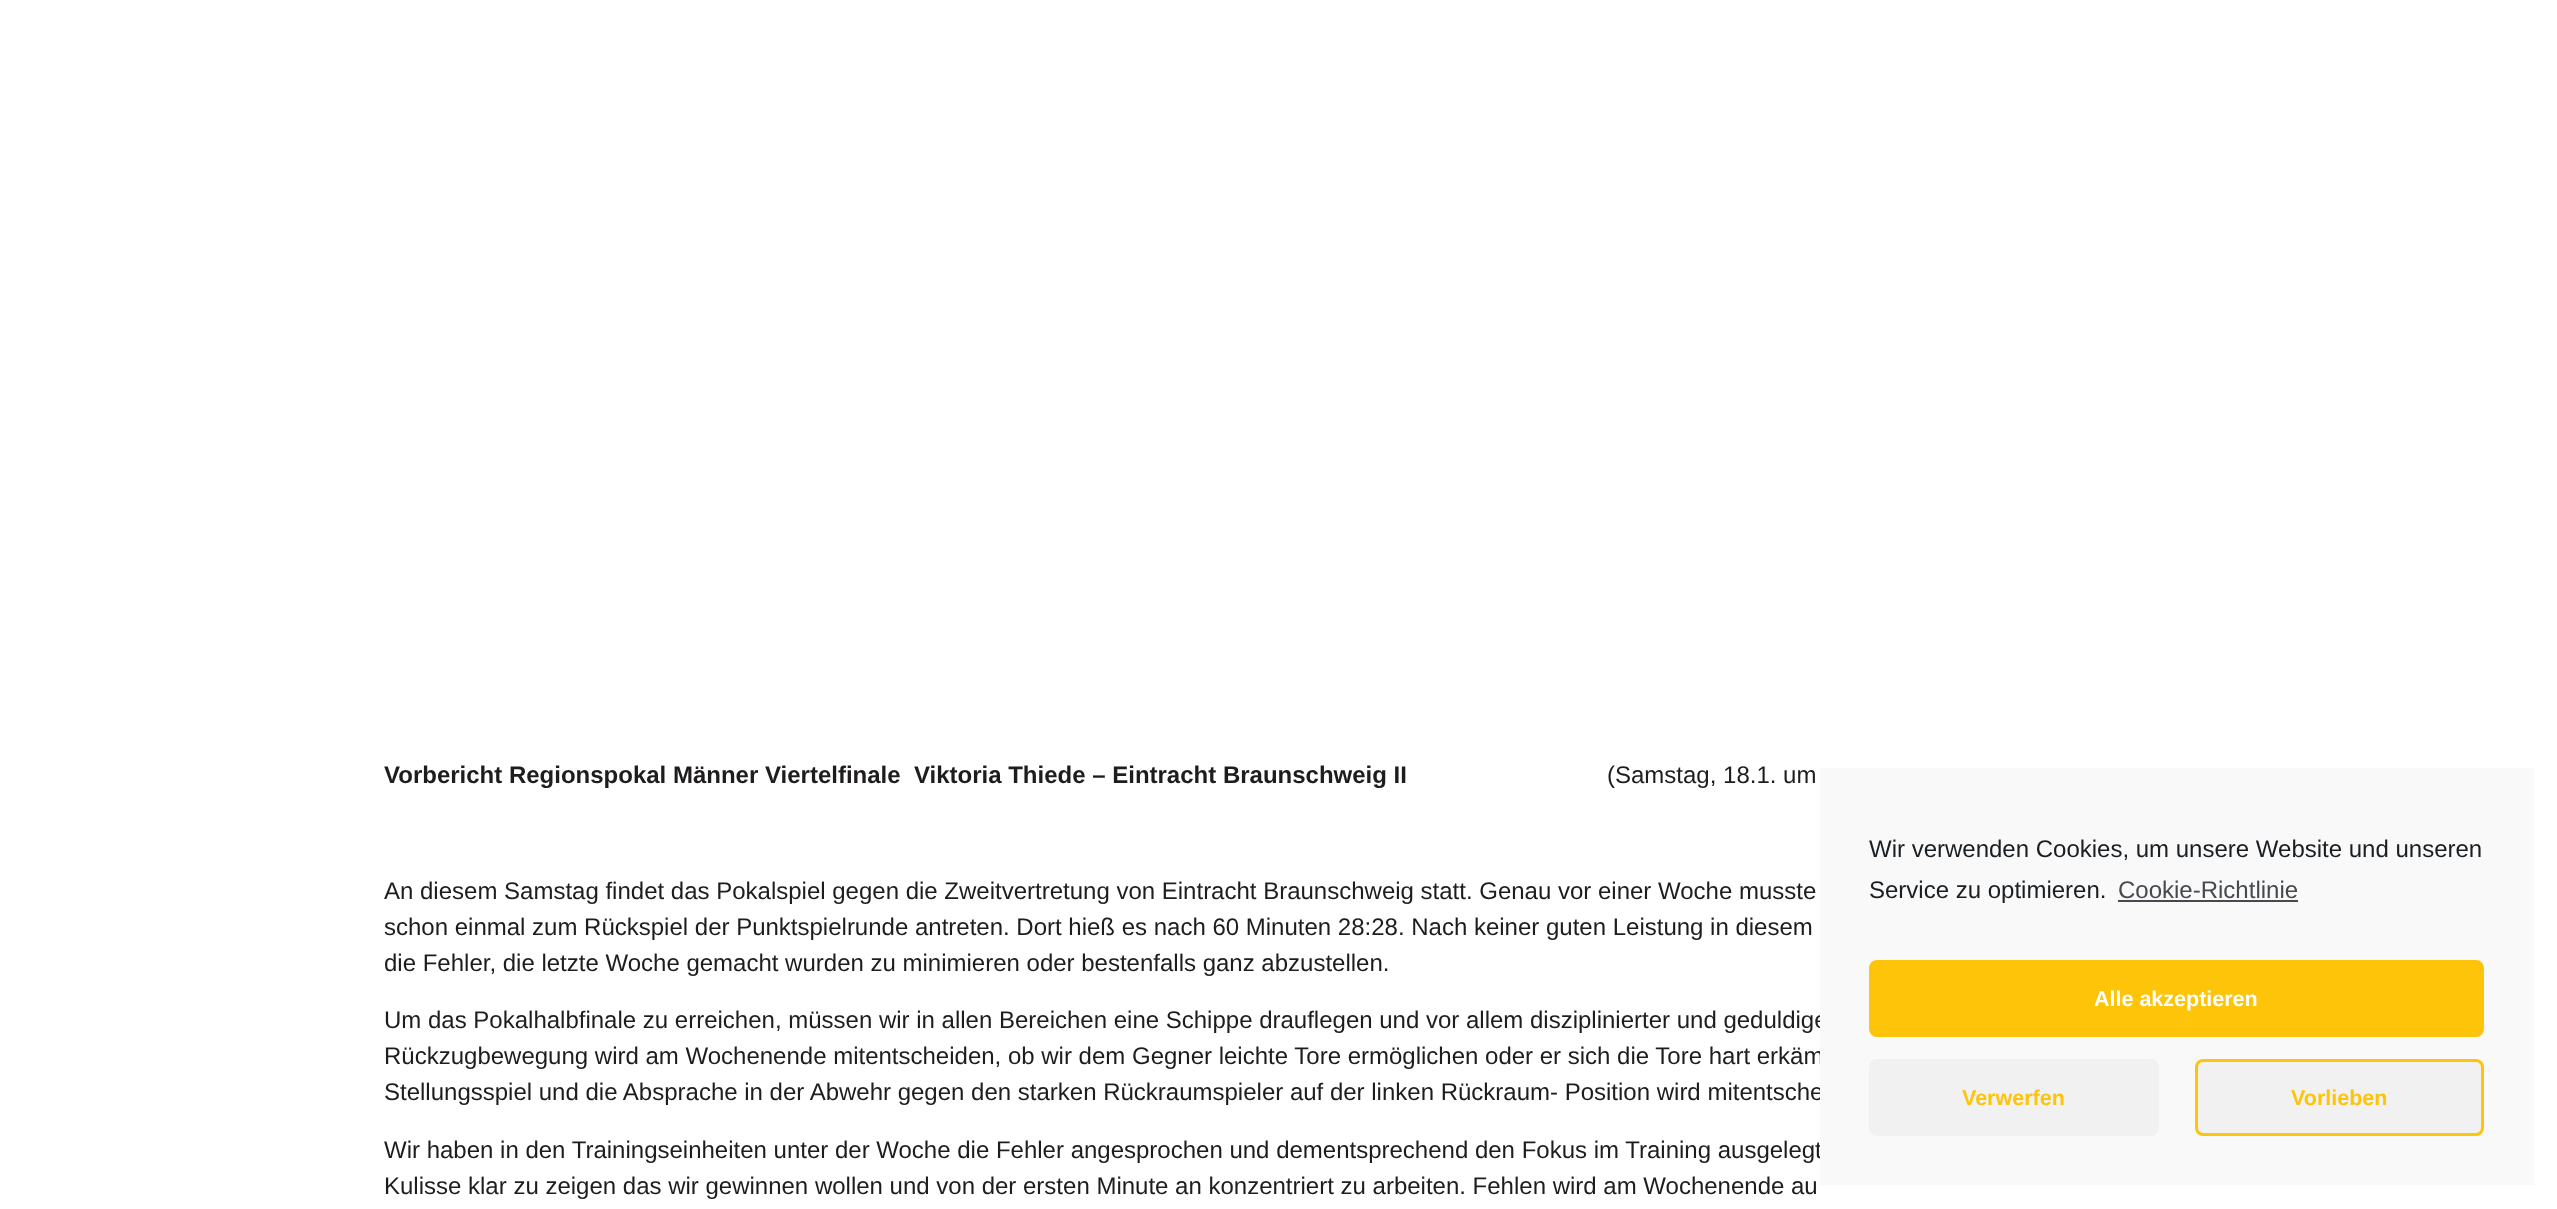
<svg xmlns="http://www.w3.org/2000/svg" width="2557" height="1209">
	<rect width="100%" height="100%" fill="#FFFFFF" />
	<text x="384" y="783" font-family="Liberation Sans" font-size="24" font-weight="700" fill="#1E1C1D" xml:space="preserve">Vorbericht Regionspokal Männer Viertelfinale  Viktoria Thiede – Eintracht Braunschweig II</text>
	<g font-family="Liberation Sans" font-size="24" fill="#1E1C1D">
		<text x="1607" y="783">(Samstag, 18.1. um</text>
		<text x="384" y="899">An diesem Samstag findet das Pokalspiel gegen die Zweitvertretung von Eintracht Braunschweig statt. Genau vor einer Woche musste</text>
		<text x="384" y="935">schon einmal zum Rückspiel der Punktspielrunde antreten. Dort hieß es nach 60 Minuten 28:28. Nach keiner guten Leistung in diesem</text>
		<text x="384" y="971">die Fehler, die letzte Woche gemacht wurden zu minimieren oder bestenfalls ganz abzustellen.</text>
		<text x="384" y="1028">Um das Pokalhalbfinale zu erreichen, müssen wir in allen Bereichen eine Schippe drauflegen und vor allem disziplinierter und geduldige</text>
		<text x="384" y="1064">Rückzugbewegung wird am Wochenende mitentscheiden, ob wir dem Gegner leichte Tore ermöglichen oder er sich die Tore hart erkäm</text>
		<text x="384" y="1100">Stellungsspiel und die Absprache in der Abwehr gegen den starken Rückraumspieler auf der linken Rückraum- Position wird mitentsche</text>
		<text x="384" y="1158">Wir haben in den Trainingseinheiten unter der Woche die Fehler angesprochen und dementsprechend den Fokus im Training ausgelegt</text>
		<text x="384" y="1194">Kulisse klar zu zeigen das wir gewinnen wollen und von der ersten Minute an konzentriert zu arbeiten. Fehlen wird am Wochenende au</text>
	</g>
	<rect x="1820" y="768" width="714" height="417" fill="#F9F9F9" />
	<g font-family="Liberation Sans" font-size="24" fill="#191E23">
		<text x="1869" y="857">Wir verwenden Cookies, um unsere Website und unseren</text>
		<text x="1869" y="898">Service zu optimieren.</text>
	</g>
	<text x="2118" y="898" font-family="Liberation Sans" font-size="24" fill="#464A4E">Cookie-Richtlinie</text>
	<rect x="2118" y="900" width="180" height="2" fill="#464A4E" />
	<rect x="1870.5" y="961.5" width="612" height="74" rx="6.5" fill="#FDC40A" stroke="#FDC40A" stroke-width="3" />
	<text x="2094" y="1006" font-family="Liberation Sans" font-size="21.5" font-weight="700" fill="#FFFFFF">Alle akzeptieren</text>
	<rect x="1869" y="1059" width="290" height="77" rx="8" fill="#F1F1F1" />
	<text x="1962" y="1105" font-family="Liberation Sans" font-size="21.5" font-weight="700" fill="#FDC40A">Verwerfen</text>
	<rect x="2196.5" y="1060.5" width="286" height="74" rx="6.5" fill="#F1F1F1" stroke="#FDC40A" stroke-width="3" />
	<text x="2291" y="1105" font-family="Liberation Sans" font-size="21.5" font-weight="700" fill="#FDC40A">Vorlieben</text>
</svg>
